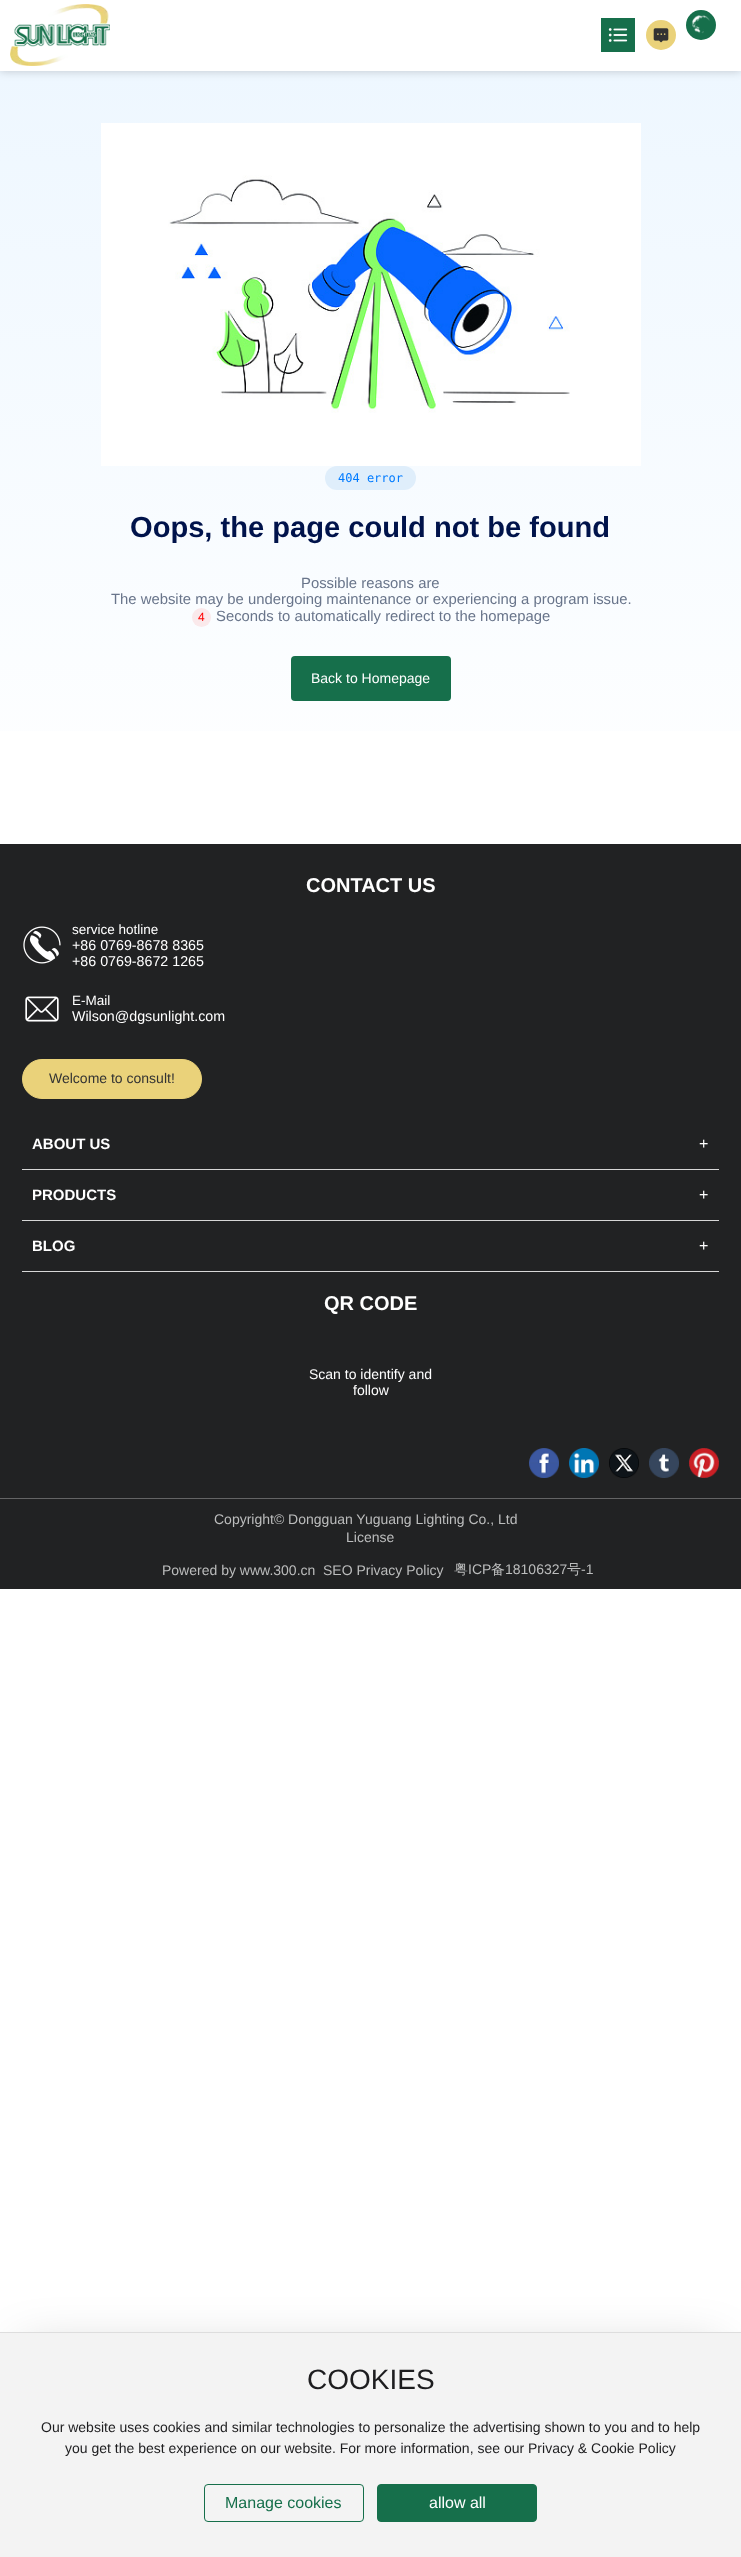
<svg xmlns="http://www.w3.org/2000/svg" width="741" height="2557">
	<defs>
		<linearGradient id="g1" gradientUnits="userSpaceOnUse" x1="370" y1="70" x2="371" y2="844"><stop offset="0" stop-color="#EEF7FF" /><stop offset="1" stop-color="#FFFFFF" /></linearGradient>
	</defs>
	<rect width="100%" height="100%" fill="#FFFFFF" />
	<rect x="0" y="71" width="741" height="660" fill="url(#g1)" />
	<rect x="0" y="0" width="741" height="71" fill="#000000" fill-opacity="0.2" filter="blur(5px)" />
	<rect x="0" y="0" width="741" height="71" fill="#FFFFFF" />
	<image x="10" y="4" width="100" height="62" href="assets/img1.png" />
	<rect x="601" y="18" width="34" height="34" fill="#166F4B" />
	<image x="608" y="28" width="20" height="14" href="assets/img2.png" />
	<circle cx="661" cy="35" r="15" fill="#EAD27A" />
	<image x="653" y="28" width="16" height="15" href="assets/img3.png" />
	<circle cx="701" cy="25" r="15" fill="#166F4B" />
	<image x="691" y="14" width="19" height="20" href="assets/img4.png" />
	<image x="101" y="123" width="540" height="343" href="assets/img5.png" />
	<rect x="325" y="466" width="91" height="24" rx="12" fill="#DFEEFB" />
	<text x="338" y="482" font-family="DejaVu Sans Mono" font-size="12" fill="#007BFF">404 error</text>
	<text x="130" y="537" font-family="Liberation Sans" font-size="29.1" font-weight="700" fill="#00134B">Oops, the page could not be found</text>
	<g font-family="Liberation Sans" font-size="14.85" fill="#69758B">
		<text x="301" y="588">Possible reasons are</text>
		<text x="111" y="604">The website may be undergoing maintenance or experiencing a program issue.</text>
	</g>
	<circle cx="201.5" cy="617.5" r="9.5" fill="#FAE9EB" />
	<text x="198" y="621" font-family="Liberation Sans" font-size="12" fill="#FF0000">4</text>
	<text x="216" y="621" font-family="Liberation Sans" font-size="14.85" fill="#69758B">Seconds to automatically redirect to the homepage</text>
	<rect x="291" y="656" width="160" height="45" rx="4" fill="#166F4B" />
	<text x="311" y="683" font-family="Liberation Sans" font-size="14" fill="#FFFFFF">Back to Homepage</text>
	<rect x="0" y="844" width="741" height="745" fill="#212223" />
	<text x="306" y="892" font-family="Liberation Sans" font-size="20" font-weight="700" fill="#FFFFFF">CONTACT US</text>
	<image x="23" y="926" width="38" height="38" href="assets/img6.png" />
	<text x="72" y="934" font-family="Liberation Sans" font-size="13.5" fill="#FFFFFF">service hotline</text>
	<g font-family="Liberation Sans" font-size="14.25" fill="#FFFFFF">
		<text x="72" y="950">+86 0769-8678 8365</text>
		<text x="72" y="966">+86 0769-8672 1265</text>
	</g>
	<image x="25" y="996" width="34" height="26" href="assets/img7.png" />
	<text x="72" y="1005" font-family="Liberation Sans" font-size="13.5" fill="#FFFFFF">E-Mail</text>
	<text x="72" y="1021" font-family="Liberation Sans" font-size="14.25" fill="#FFFFFF">Wilson@dgsunlight.com</text>
	<rect x="22.5" y="1059.5" width="179" height="39" rx="19.5" fill="#EAD27A" stroke="#EAD27A" />
	<text x="49" y="1083" font-family="Liberation Sans" font-size="14" fill="#333333">Welcome to consult!</text>
	<rect x="22" y="1169" width="697" height="1" fill="#D7D7D7" />
	<text x="32" y="1149" font-family="Liberation Sans" font-size="15" font-weight="700" fill="#FFFFFF">ABOUT US</text>
	<text x="699" y="1149" font-family="Liberation Sans" font-size="16" fill="#FFFFFF">+</text>
	<rect x="22" y="1220" width="697" height="1" fill="#D7D7D7" />
	<text x="32" y="1200" font-family="Liberation Sans" font-size="15" font-weight="700" fill="#FFFFFF">PRODUCTS</text>
	<text x="699" y="1200" font-family="Liberation Sans" font-size="16" fill="#FFFFFF">+</text>
	<rect x="22" y="1271" width="697" height="1" fill="#D7D7D7" />
	<text x="32" y="1251" font-family="Liberation Sans" font-size="15" font-weight="700" fill="#FFFFFF">BLOG</text>
	<text x="699" y="1251" font-family="Liberation Sans" font-size="16" fill="#FFFFFF">+</text>
	<text x="324" y="1310" font-family="Liberation Sans" font-size="20" font-weight="700" fill="#FFFFFF">QR CODE</text>
	<g font-family="Liberation Sans" font-size="14" fill="#FFFFFF">
		<text x="309" y="1379">Scan to identify and</text>
		<text x="353" y="1395">follow</text>
	</g>
	<image x="529" y="1448" width="30" height="30" href="assets/img8.png" />
	<image x="569" y="1448" width="30" height="30" href="assets/img9.png" />
	<image x="609" y="1448" width="30" height="30" href="assets/img10.png" />
	<image x="649" y="1448" width="30" height="30" href="assets/img11.png" />
	<image x="689" y="1448" width="30" height="30" href="assets/img12.png" />
	<rect x="0" y="1498" width="741" height="1" fill="#646465" />
	<g font-family="Liberation Sans" font-size="14" fill="#BCBDBD">
		<text x="214" y="1524">Copyright© Dongguan Yuguang Lighting Co., Ltd</text>
		<text x="346" y="1542">License</text>
		<text x="162" y="1575">Powered by www.300.cn</text>
		<text x="323" y="1575">SEO Privacy Policy</text>
	</g>
	<text x="454" y="1574" font-family="WenQuanYi Zen Hei" font-size="14" font-weight="500" fill="#BCBDBD">粤</text>
	<text x="468" y="1574" font-family="Liberation Sans" font-size="14" fill="#BCBDBD">ICP</text>
	<text x="491" y="1574" font-family="WenQuanYi Zen Hei" font-size="14" font-weight="500" fill="#BCBDBD">备</text>
	<text x="505" y="1574" font-family="Liberation Sans" font-size="14" fill="#BCBDBD">18106327</text>
	<text x="567" y="1574" font-family="WenQuanYi Zen Hei" font-size="14" font-weight="500" fill="#BCBDBD">号</text>
	<text x="581" y="1574" font-family="Liberation Sans" font-size="14" fill="#BCBDBD">-1</text>
	<rect x="21" y="2349" width="699" height="183" fill="#000000" fill-opacity="0.2" filter="blur(25px)" />
	<rect x="0" y="2333" width="741" height="224" fill="#F3F3F3" />
	<rect x="0" y="2332" width="741" height="1" fill="#DDDDDD" />
	<text x="307" y="2389" font-family="Liberation Sans" font-size="28" fill="#1D1D1F">COOKIES</text>
	<g font-family="Liberation Sans" font-size="14" fill="#1D1D1F">
		<text x="41" y="2432">Our website uses cookies and similar technologies to personalize the advertising shown to you and to help</text>
		<text x="65" y="2453">you get the best experience on our website. For more information, see our Privacy &amp; Cookie Policy</text>
	</g>
	<rect x="204.5" y="2484.5" width="159" height="37" rx="3.5" fill="none" stroke="#166F4B" />
	<text x="225" y="2508" font-family="Liberation Sans" font-size="16" fill="#166F4B">Manage cookies</text>
	<rect x="377.5" y="2484.5" width="159" height="37" rx="3.5" fill="#166F4B" stroke="#166F4B" />
	<text x="429" y="2508" font-family="Liberation Sans" font-size="16" fill="#FFFFFF">allow all</text>
</svg>
